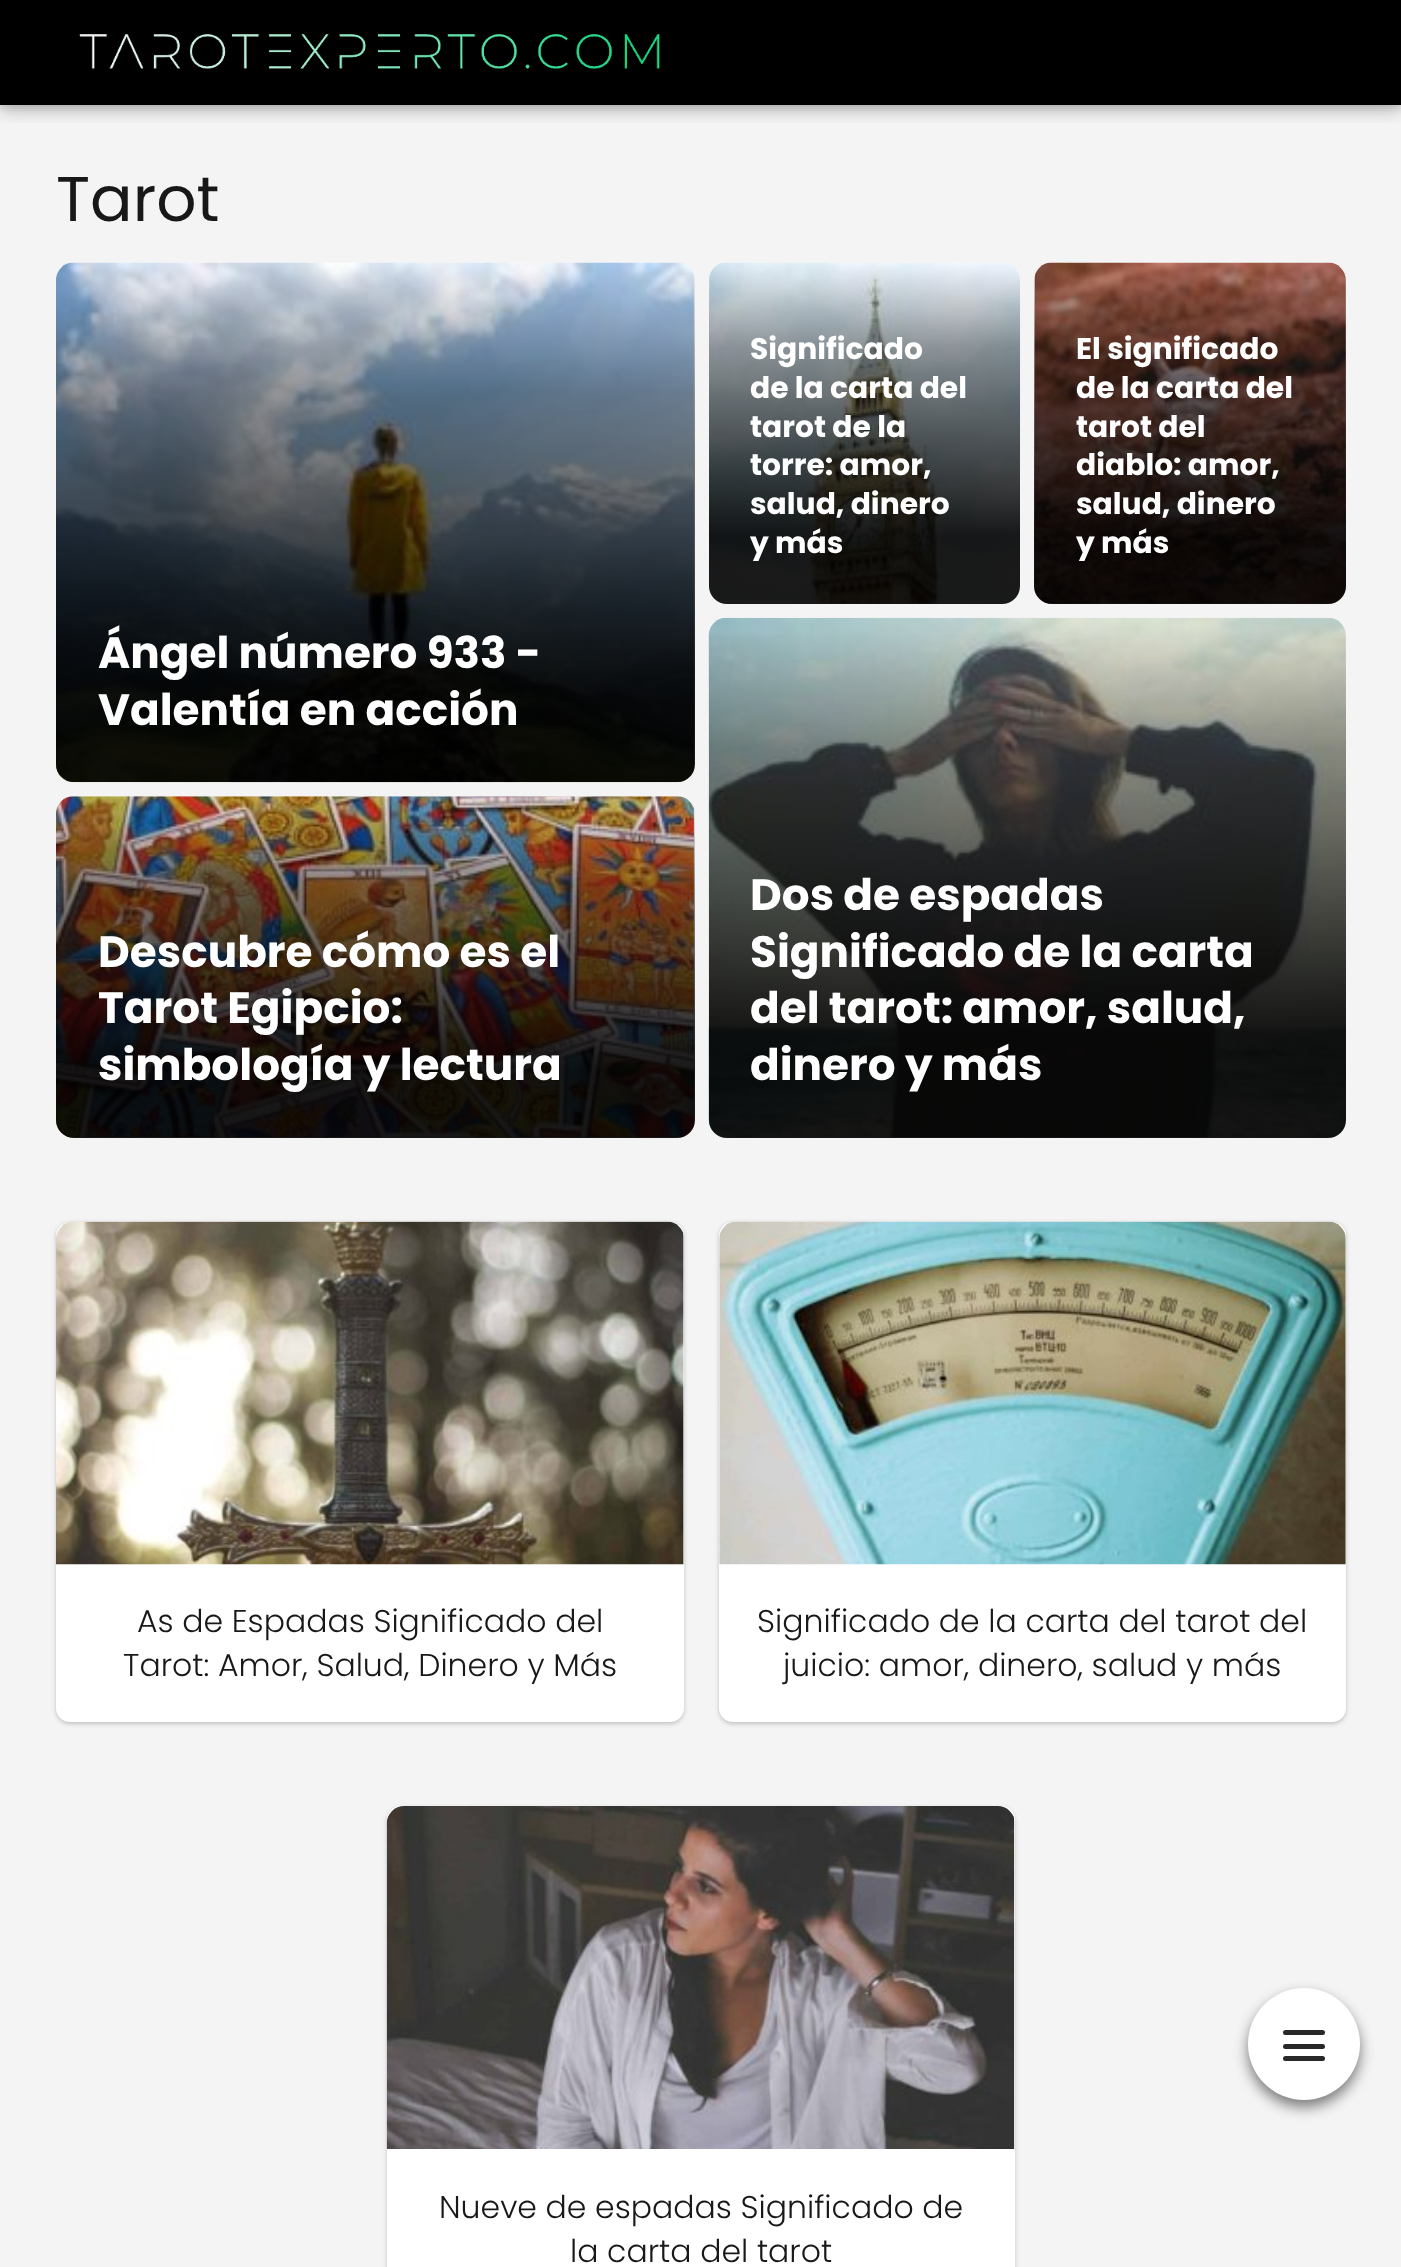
<svg xmlns="http://www.w3.org/2000/svg" width="1401" height="2267">
	<defs>
		<clipPath id="clip1"><rect x="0" y="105" width="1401" height="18" /></clipPath>
		<linearGradient id="g1" gradientUnits="userSpaceOnUse" x1="865" y1="604" x2="865" y2="263"><stop offset="0.2" stop-color="#000000" stop-opacity="0.9" /><stop offset="0.75" stop-color="#000000" stop-opacity="0.4" /><stop offset="1" stop-color="#000000" stop-opacity="0" /></linearGradient>
		<linearGradient id="g2" gradientUnits="userSpaceOnUse" x1="1190" y1="604" x2="1190" y2="263"><stop offset="0.2" stop-color="#000000" stop-opacity="0.9" /><stop offset="0.75" stop-color="#000000" stop-opacity="0.4" /><stop offset="1" stop-color="#000000" stop-opacity="0" /></linearGradient>
		<linearGradient id="g3" gradientUnits="userSpaceOnUse" x1="375" y1="782" x2="375" y2="263"><stop offset="0.2" stop-color="#000000" stop-opacity="0.9" /><stop offset="0.75" stop-color="#000000" stop-opacity="0.4" /><stop offset="1" stop-color="#000000" stop-opacity="0" /></linearGradient>
		<linearGradient id="g4" gradientUnits="userSpaceOnUse" x1="375" y1="1138" x2="375" y2="796"><stop offset="0.2" stop-color="#000000" stop-opacity="0.9" /><stop offset="0.75" stop-color="#000000" stop-opacity="0.4" /><stop offset="1" stop-color="#000000" stop-opacity="0" /></linearGradient>
		<linearGradient id="g5" gradientUnits="userSpaceOnUse" x1="1027" y1="1138" x2="1027" y2="618"><stop offset="0.2" stop-color="#000000" stop-opacity="0.9" /><stop offset="0.75" stop-color="#000000" stop-opacity="0.4" /><stop offset="1" stop-color="#000000" stop-opacity="0" /></linearGradient>
	</defs>
	<rect width="100%" height="100%" fill="#F4F4F4" />
	<rect x="0" y="4" width="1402" height="105" fill="#000000" fill-opacity="0.1" filter="blur(3.5px)" />
	<rect x="0" y="0" width="1401" height="105" fill="#000000" />
	<rect x="1248" y="1995" width="112" height="112" rx="56" fill="#000000" fill-opacity="0.5" filter="blur(7px)" />
	<circle cx="1304" cy="2044" r="56" fill="#FFFFFF" />
	<rect x="1283" y="2030" width="42" height="5" rx="2.5" fill="#282828" />
	<rect x="1283" y="2044" width="42" height="5" rx="2.5" fill="#282828" />
	<rect x="1283" y="2056" width="42" height="5" rx="2.5" fill="#282828" />
	<g clip-path="url(#clip1)">
		<rect x="0" y="2" width="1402" height="105" fill="#000000" fill-opacity="0.3" filter="blur(10.5px)" />
	</g>
	<image x="79" y="33" width="581" height="36" href="assets/img1.png" />
	<text x="56" y="221" font-family="Poppins" font-size="63" fill="#181818">Tarot</text>
	<image x="709" y="262" width="312" height="342" href="assets/img2.png" />
	<rect x="709" y="263" width="311" height="341" rx="18" fill="url(#g1)" />
	<g font-family="Poppins" font-size="29.75" font-weight="700" fill="#FFFFFF">
		<text x="750" y="359">Significado</text>
		<text x="750" y="398">de la carta del</text>
		<text x="750" y="437">tarot de la</text>
		<text x="750" y="475">torre: amor,</text>
		<text x="750" y="514">salud, dinero</text>
		<text x="750" y="553">y más</text>
	</g>
	<image x="1034" y="262" width="312" height="342" href="assets/img3.png" />
	<rect x="1034" y="263" width="312" height="341" rx="18" fill="url(#g2)" />
	<g font-family="Poppins" font-size="29.75" font-weight="700" fill="#FFFFFF">
		<text x="1076" y="359">El significado</text>
		<text x="1076" y="398">de la carta del</text>
		<text x="1076" y="437">tarot del</text>
		<text x="1076" y="475">diablo: amor,</text>
		<text x="1076" y="514">salud, dinero</text>
		<text x="1076" y="553">y más</text>
	</g>
	<image x="56" y="262" width="638" height="521" href="assets/img4.png" />
	<rect x="56" y="263" width="639" height="519" rx="18" fill="url(#g3)" />
	<g font-family="Poppins" font-size="43.75" font-weight="700" fill="#FFFFFF">
		<text x="98" y="668">Ángel número 933 -</text>
		<text x="98" y="725">Valentía en acción</text>
	</g>
	<image x="56" y="796" width="638" height="342" href="assets/img5.png" />
	<rect x="56" y="796" width="639" height="342" rx="18" fill="url(#g4)" />
	<g font-family="Poppins" font-size="43.75" font-weight="700" fill="#FFFFFF">
		<text x="98" y="967">Descubre cómo es el</text>
		<text x="98" y="1023">Tarot Egipcio:</text>
		<text x="98" y="1080">simbología y lectura</text>
	</g>
	<image x="708" y="617" width="638" height="521" href="assets/img6.png" />
	<rect x="709" y="618" width="637" height="520" rx="18" fill="url(#g5)" />
	<g font-family="Poppins" font-size="43.75" font-weight="700" fill="#FFFFFF">
		<text x="750" y="910">Dos de espadas</text>
		<text x="750" y="967">Significado de la carta</text>
		<text x="750" y="1023">del tarot: amor, salud,</text>
		<text x="750" y="1080">dinero y más</text>
	</g>
	<rect x="56" y="1223" width="628" height="501" rx="14" fill="#000000" fill-opacity="0.2" filter="blur(2px)" />
	<rect x="56" y="1222" width="628" height="500" rx="14" fill="#FFFFFF" />
	<image x="56" y="1221" width="628" height="344" href="assets/img7.png" />
	<g font-family="Poppins" font-size="31.5" font-weight="300" fill="#181818">
		<text x="137" y="1632">As de Espadas Significado del</text>
		<text x="123" y="1676">Tarot: Amor, Salud, Dinero y Más</text>
	</g>
	<rect x="719" y="1223" width="627" height="501" rx="14" fill="#000000" fill-opacity="0.2" filter="blur(2px)" />
	<rect x="719" y="1222" width="627" height="500" rx="14" fill="#FFFFFF" />
	<image x="719" y="1221" width="627" height="344" href="assets/img8.png" />
	<g font-family="Poppins" font-size="31.5" font-weight="300" fill="#181818">
		<text x="757" y="1632">Significado de la carta del tarot del</text>
		<text x="783" y="1676">juicio: amor, dinero, salud y más</text>
	</g>
	<rect x="387" y="1808" width="628" height="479" rx="14" fill="#000000" fill-opacity="0.2" filter="blur(2px)" />
	<rect x="387" y="1806" width="628" height="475" rx="14" fill="#FFFFFF" />
	<image x="386" y="1806" width="629" height="343" href="assets/img9.png" />
	<g font-family="Poppins" font-size="31.5" font-weight="300" fill="#181818">
		<text x="439" y="2218">Nueve de espadas Significado de</text>
		<text x="570" y="2262">la carta del tarot</text>
	</g>
</svg>
